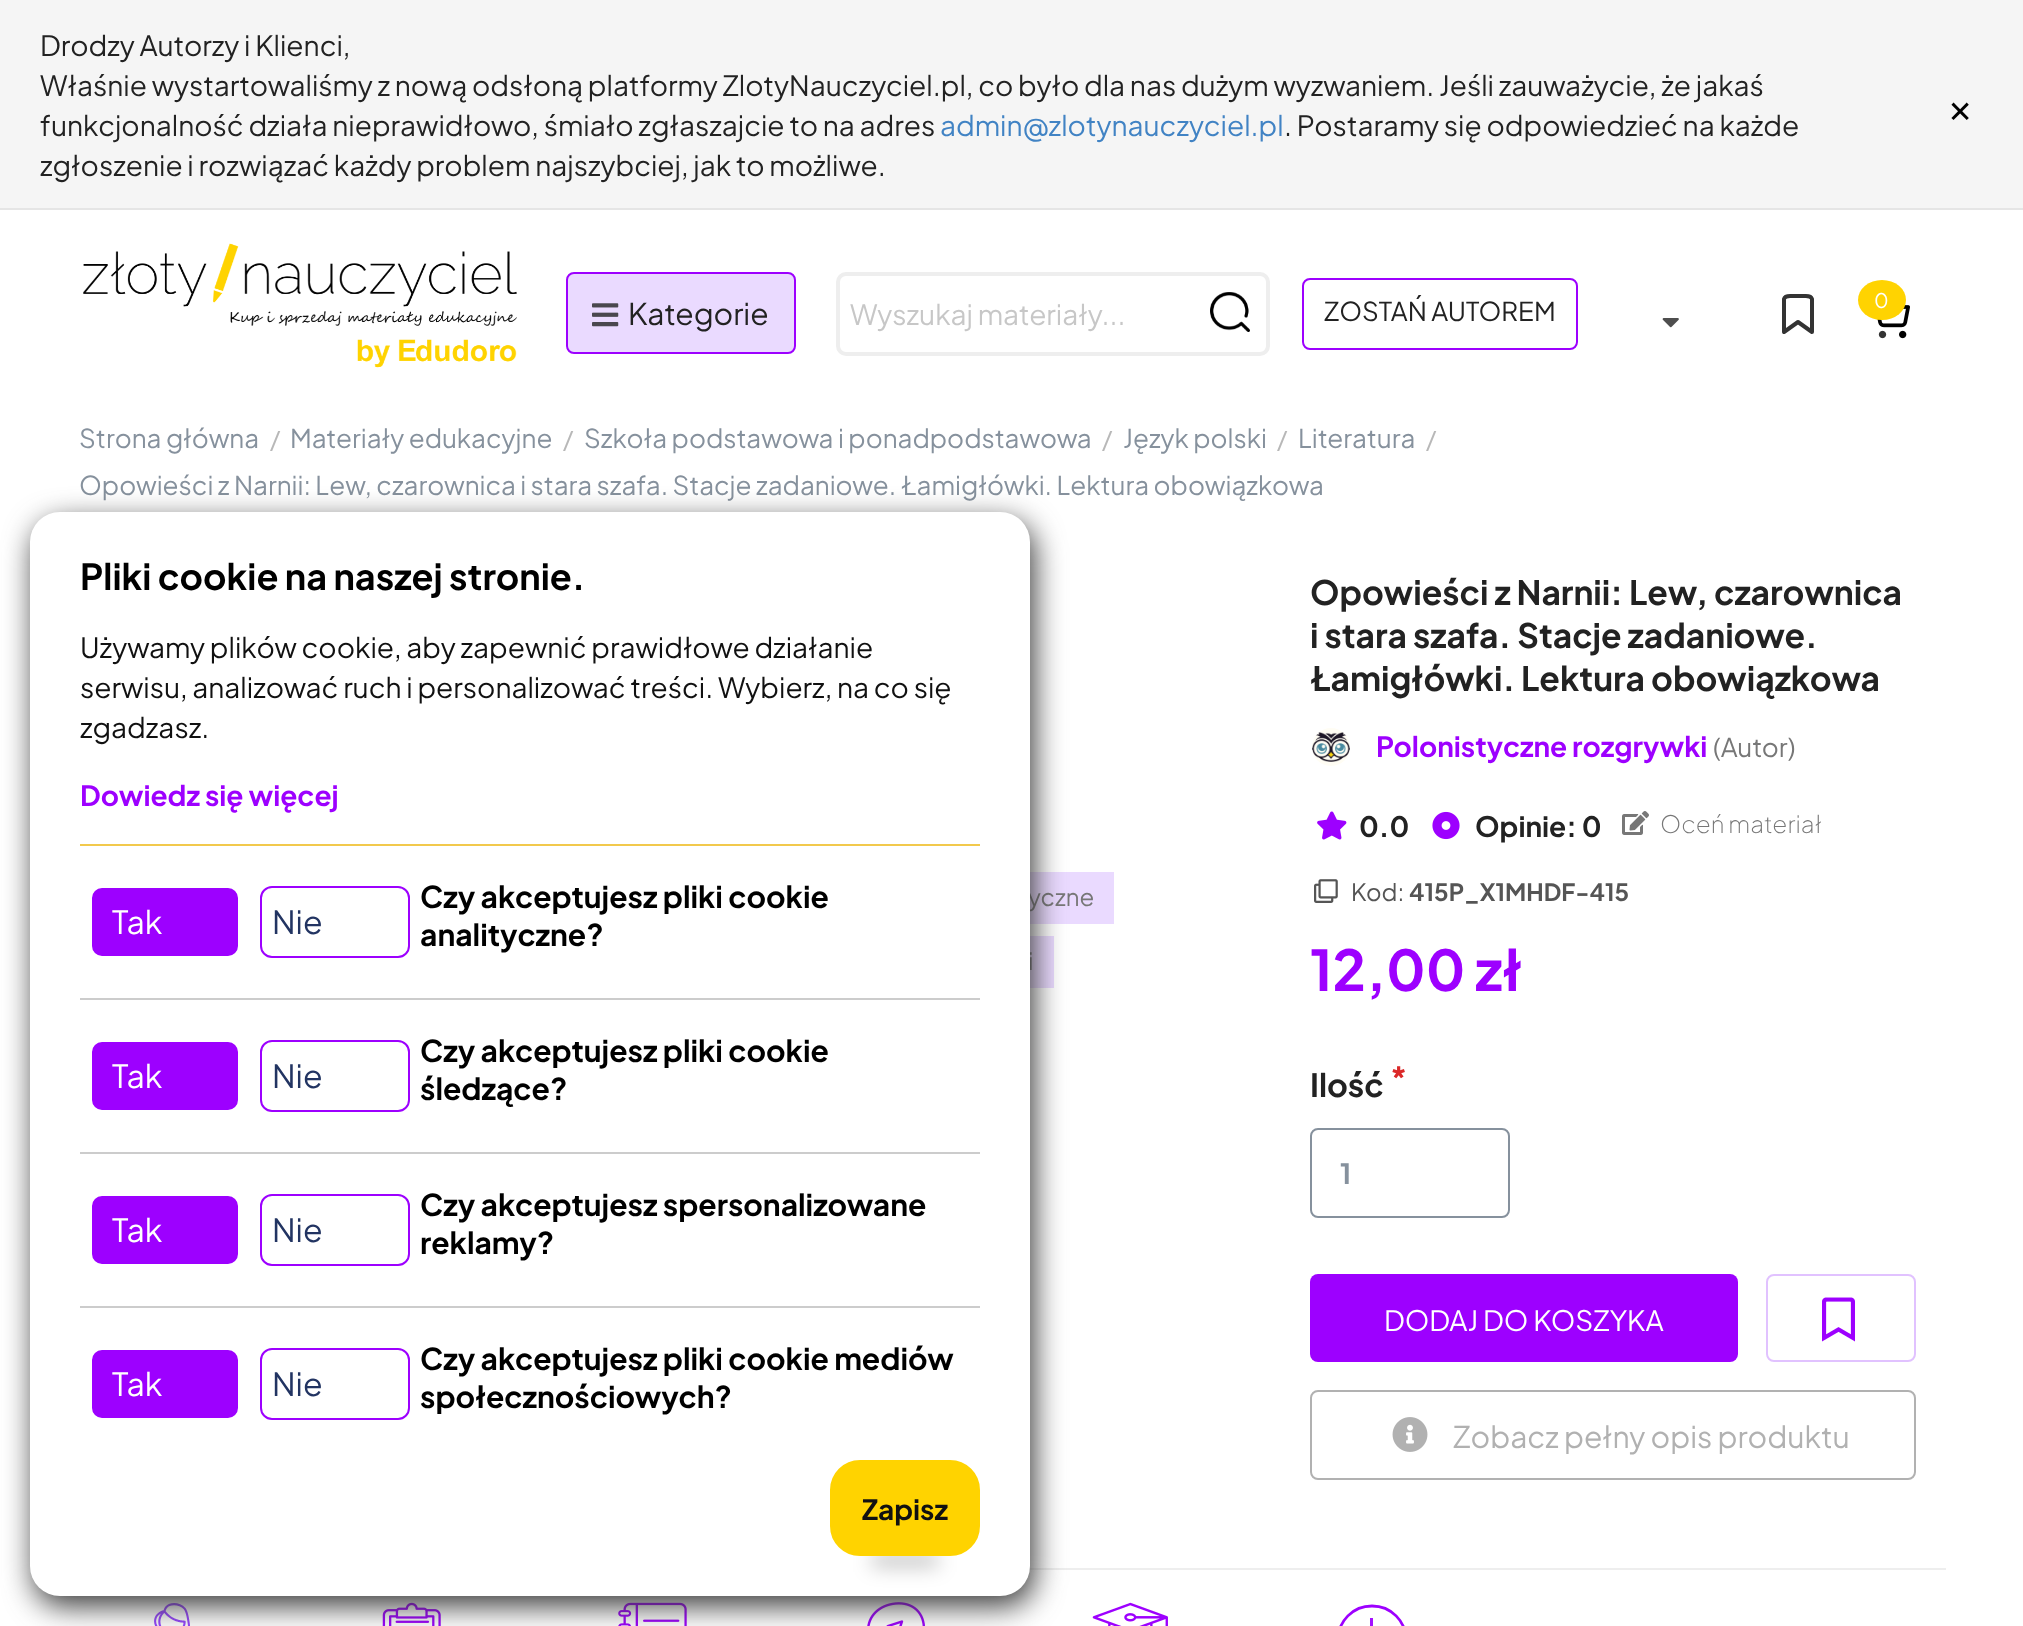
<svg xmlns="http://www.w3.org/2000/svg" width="2023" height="1626">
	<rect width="100%" height="100%" fill="#FFFFFF" />
	<rect x="0" y="0" width="2023" height="208" fill="#F5F5F5" />
	<rect x="0" y="208" width="2023" height="2" fill="#E5E5E5" />
	<g font-family="Plus Jakarta Sans" font-size="28" fill="#222222">
		<text x="40" y="56">Drodzy Autorzy i Klienci,</text>
		<text x="40" y="96">Właśnie wystartowaliśmy z nową odsłoną platformy ZlotyNauczyciel.pl, co było dla nas dużym wyzwaniem. Jeśli zauważycie, że jakaś</text>
		<text x="40" y="136">funkcjonalność działa nieprawidłowo, śmiało zgłaszajcie to na adres</text>
	</g>
	<text x="940" y="136" font-family="Plus Jakarta Sans" font-size="28" fill="#4183C4">admin@zlotynauczyciel.pl</text>
	<g font-family="Plus Jakarta Sans" font-size="28" fill="#222222">
		<text x="1284" y="136">. Postaramy się odpowiedzieć na każde</text>
		<text x="40" y="176">zgłoszenie i rozwiązać każdy problem najszybciej, jak to możliwe.</text>
	</g>
	<text x="1948" y="120" font-family="Plus Jakarta Sans" font-size="40" fill="#000000">×</text>
	<image x="83" y="243" width="434" height="125" href="assets/img1.png" />
	<rect x="567" y="273" width="228" height="80" rx="7" fill="#EADAFF" stroke="#9D00FF" stroke-width="2" />
	<image x="592" y="303" width="27" height="24" href="assets/img2.png" />
	<text x="628" y="325" font-family="Plus Jakarta Sans" font-size="30" fill="#222222">Kategorie</text>
	<rect x="838" y="274" width="430" height="80" rx="8" fill="none" stroke="#EEEEEE" stroke-width="4" />
	<text x="850" y="325" font-family="Plus Jakarta Sans" font-size="28" fill="#C7C7C7">Wyszukaj materiały...</text>
	<image x="1210" y="292" width="40" height="40" href="assets/img3.png" />
	<rect x="1303" y="279" width="274" height="70" rx="7" fill="none" stroke="#9D00FF" stroke-width="2" />
	<text x="1324" y="321" font-family="Plus Jakarta Sans" font-size="26" fill="#222222">ZOSTAŃ AUTOREM</text>
	<image x="1662" y="318" width="17" height="10" href="assets/img4.png" />
	<path d="M1812 332L1798 322L1784 332V299C1785 295.5 1788.5 296 1791.5 296H1804.5C1807.5 296 1811 295.5 1812 299Z" fill="none" stroke="#333333" stroke-width="4" stroke-linecap="round" stroke-linejoin="round" />
	<image x="1877" y="305" width="33" height="34" href="assets/img5.png" />
	<ellipse cx="1882" cy="300" rx="24" ry="20" fill="#FFD301" />
	<text x="1874" y="308" font-family="Plus Jakarta Sans" font-size="20" fill="#FFFFFF">0</text>
	<text x="79" y="448" font-family="Plus Jakarta Sans" font-size="26" fill="#86919D">Strona główna</text>
	<text x="270" y="448" font-family="Plus Jakarta Sans" font-size="24" fill="#B8B8B8">/</text>
	<text x="290" y="448" font-family="Plus Jakarta Sans" font-size="26" fill="#86919D">Materiały edukacyjne</text>
	<text x="563" y="448" font-family="Plus Jakarta Sans" font-size="24" fill="#B8B8B8">/</text>
	<text x="584" y="448" font-family="Plus Jakarta Sans" font-size="26" fill="#86919D">Szkoła podstawowa i ponadpodstawowa</text>
	<text x="1102" y="448" font-family="Plus Jakarta Sans" font-size="24" fill="#B8B8B8">/</text>
	<text x="1123" y="448" font-family="Plus Jakarta Sans" font-size="26" fill="#86919D">Język polski</text>
	<text x="1277" y="448" font-family="Plus Jakarta Sans" font-size="24" fill="#B8B8B8">/</text>
	<text x="1298" y="448" font-family="Plus Jakarta Sans" font-size="26" fill="#86919D">Literatura</text>
	<text x="1426" y="448" font-family="Plus Jakarta Sans" font-size="24" fill="#B8B8B8">/</text>
	<text x="79" y="495" font-family="Plus Jakarta Sans" font-size="26" fill="#86919D">Opowieści z Narnii: Lew, czarownica i stara szafa. Stacje zadaniowe. Łamigłówki. Lektura obowiązkowa</text>
	<rect x="1030" y="872" width="84" height="52" fill="#EADAFF" />
	<text x="1028" y="906" font-family="Plus Jakarta Sans" font-size="24" fill="#777777">yczne</text>
	<rect x="1030" y="936" width="24" height="52" fill="#EADAFF" />
	<text x="1028" y="970" font-family="Plus Jakarta Sans" font-size="24" fill="#777777">i</text>
	<g font-family="Plus Jakarta Sans" font-size="33.6" font-weight="700" fill="#222222">
		<text x="1310" y="605">Opowieści z Narnii: Lew, czarownica</text>
		<text x="1310" y="648">i stara szafa. Stacje zadaniowe.</text>
		<text x="1310" y="691">Łamigłówki. Lektura obowiązkowa</text>
	</g>
	<image x="1312" y="728" width="38" height="38" href="assets/img6.png" />
	<text x="1376" y="757" font-family="Plus Jakarta Sans" font-size="28" font-weight="700" fill="#9D00FF">Polonistyczne rozgrywki</text>
	<text x="1713" y="757" font-family="Plus Jakarta Sans" font-size="26" fill="#777777">(Autor)</text>
	<image x="1317" y="811" width="30" height="29" href="assets/img7.png" />
	<text x="1359" y="837" font-family="Plus Jakarta Sans" font-size="28" font-weight="700" fill="#222222">0.0</text>
	<image x="1432" y="811" width="28" height="29" href="assets/img8.png" />
	<text x="1475" y="837" font-family="Plus Jakarta Sans" font-size="28" font-weight="700" fill="#222222">Opinie: 0</text>
	<image x="1622" y="811" width="27" height="24" href="assets/img9.png" />
	<text x="1660" y="833" font-family="Plus Jakarta Sans" font-size="24" font-weight="200" fill="#777777">Oceń materiał</text>
	<image x="1314" y="879" width="24" height="24" href="assets/img10.png" />
	<text x="1351" y="901" font-family="Plus Jakarta Sans" font-size="23.75" fill="#555555">Kod:</text>
	<text x="1409" y="901" font-family="Plus Jakarta Sans" font-size="23.75" font-weight="700" fill="#555555">415P_X1MHDF-415</text>
	<text x="1310" y="991" font-family="Plus Jakarta Sans" font-size="56" font-weight="700" fill="#9D00FF">12,00 zł</text>
	<text x="1310" y="1097" font-family="Plus Jakarta Sans" font-size="32" font-weight="700" fill="#222222">Ilość</text>
	<text x="1390" y="1090" font-family="Plus Jakarta Sans" font-size="32" font-weight="700" fill="#DB2828">*</text>
	<rect x="1311" y="1129" width="198" height="88" rx="7" fill="none" stroke="#86919D" stroke-width="2" />
	<text x="1340" y="1184" font-family="Plus Jakarta Sans" font-size="28" font-weight="700" fill="#86919D">1</text>
	<rect x="1310" y="1274" width="428" height="88" rx="8" fill="#9D00FF" />
	<text x="1384" y="1331" font-family="Plus Jakarta Sans" font-size="28" fill="#FFFFFF">DODAJ DO KOSZYKA</text>
	<rect x="1767" y="1275" width="148" height="86" rx="7" fill="none" stroke="#E1C2FF" stroke-width="2" />
	<image x="1822" y="1297" width="33" height="45" href="assets/img11.png" />
	<rect x="1311" y="1391" width="604" height="88" rx="7" fill="none" stroke="#B1B1B1" stroke-width="2" />
	<image x="1392" y="1417" width="36" height="35" href="assets/img12.png" />
	<text x="1453" y="1448" font-family="Plus Jakarta Sans" font-size="30" fill="#B1B1B1">Zobacz pełny opis produktu</text>
	<rect x="1029" y="1568" width="917" height="2" fill="#EEEEEE" />
	<image x="154" y="1603" width="36" height="23" href="assets/img13.png" />
	<image x="382" y="1602" width="59" height="24" href="assets/img14.png" />
	<image x="618" y="1602" width="69" height="24" href="assets/img15.png" />
	<image x="867" y="1602" width="58" height="24" href="assets/img16.png" />
	<image x="1092" y="1602" width="76" height="24" href="assets/img17.png" />
	<path d="M1406 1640C1406 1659 1391 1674 1372 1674C1353 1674 1338 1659 1338 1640C1338 1621 1353 1606 1372 1606C1391 1606 1406 1621 1406 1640Z" fill="none" stroke="#9D00FF" stroke-width="2.8" />
	<rect x="1370" y="1618" width="3" height="8" fill="#A411FF" />
	<rect x="34" y="522" width="1000" height="1084" rx="30" fill="#393939" filter="blur(15px)" />
	<rect x="30" y="512" width="1000" height="1084" rx="30" fill="#FFFFFF" />
	<text x="80" y="590" font-family="Plus Jakarta Sans" font-size="36" font-weight="700" fill="#000000">Pliki cookie na naszej stronie.</text>
	<g font-family="Plus Jakarta Sans" font-size="28" fill="#111111">
		<text x="80" y="658">Używamy plików cookie, aby zapewnić prawidłowe działanie</text>
		<text x="80" y="698">serwisu, analizować ruch i personalizować treści. Wybierz, na co się</text>
		<text x="80" y="738">zgadzasz.</text>
	</g>
	<text x="80" y="806" font-family="Plus Jakarta Sans" font-size="28" font-weight="700" fill="#9D00FF">Dowiedz się więcej</text>
	<rect x="80" y="844" width="900" height="2" fill="#F2C94C" />
	<rect x="80" y="998" width="900" height="2" fill="#CCCCCC" />
	<rect x="91" y="887" width="148" height="70" rx="11" fill="#9D00FF" stroke="#FFFFFF" stroke-width="2" />
	<text x="112" y="934" font-family="Plus Jakarta Sans" font-size="32" fill="#FFFFFF">Tak</text>
	<rect x="261" y="887" width="148" height="70" rx="11" fill="none" stroke="#9D00FF" stroke-width="2" />
	<text x="272" y="934" font-family="Plus Jakarta Sans" font-size="32" fill="#223462">Nie</text>
	<g font-family="Plus Jakarta Sans" font-size="30" font-weight="700" fill="#000000">
		<text x="420" y="908">Czy akceptujesz pliki cookie</text>
		<text x="420" y="946">analityczne?</text>
	</g>
	<rect x="80" y="1152" width="900" height="2" fill="#CCCCCC" />
	<rect x="91" y="1041" width="148" height="70" rx="11" fill="#9D00FF" stroke="#FFFFFF" stroke-width="2" />
	<text x="112" y="1088" font-family="Plus Jakarta Sans" font-size="32" fill="#FFFFFF">Tak</text>
	<rect x="261" y="1041" width="148" height="70" rx="11" fill="none" stroke="#9D00FF" stroke-width="2" />
	<text x="272" y="1088" font-family="Plus Jakarta Sans" font-size="32" fill="#223462">Nie</text>
	<g font-family="Plus Jakarta Sans" font-size="30" font-weight="700" fill="#000000">
		<text x="420" y="1062">Czy akceptujesz pliki cookie</text>
		<text x="420" y="1100">śledzące?</text>
	</g>
	<rect x="80" y="1306" width="900" height="2" fill="#CCCCCC" />
	<rect x="91" y="1195" width="148" height="70" rx="11" fill="#9D00FF" stroke="#FFFFFF" stroke-width="2" />
	<text x="112" y="1242" font-family="Plus Jakarta Sans" font-size="32" fill="#FFFFFF">Tak</text>
	<rect x="261" y="1195" width="148" height="70" rx="11" fill="none" stroke="#9D00FF" stroke-width="2" />
	<text x="272" y="1242" font-family="Plus Jakarta Sans" font-size="32" fill="#223462">Nie</text>
	<g font-family="Plus Jakarta Sans" font-size="30" font-weight="700" fill="#000000">
		<text x="420" y="1216">Czy akceptujesz spersonalizowane</text>
		<text x="420" y="1254">reklamy?</text>
	</g>
	<rect x="91" y="1349" width="148" height="70" rx="11" fill="#9D00FF" stroke="#FFFFFF" stroke-width="2" />
	<text x="112" y="1396" font-family="Plus Jakarta Sans" font-size="32" fill="#FFFFFF">Tak</text>
	<rect x="261" y="1349" width="148" height="70" rx="11" fill="none" stroke="#9D00FF" stroke-width="2" />
	<text x="272" y="1396" font-family="Plus Jakarta Sans" font-size="32" fill="#223462">Nie</text>
	<g font-family="Plus Jakarta Sans" font-size="30" font-weight="700" fill="#000000">
		<text x="420" y="1370">Czy akceptujesz pliki cookie mediów</text>
		<text x="420" y="1408">społecznościowych?</text>
	</g>
	<rect x="872" y="1554" width="66" height="12" fill="#000000" fill-opacity="0.28" filter="blur(10px)" />
	<rect x="831" y="1461" width="148" height="94" rx="29" fill="#FFD300" stroke="#FFD300" stroke-width="2" />
	<text x="862" y="1520" font-family="Plus Jakarta Sans" font-size="28" font-weight="700" fill="#111111">Zapisz</text>
</svg>
